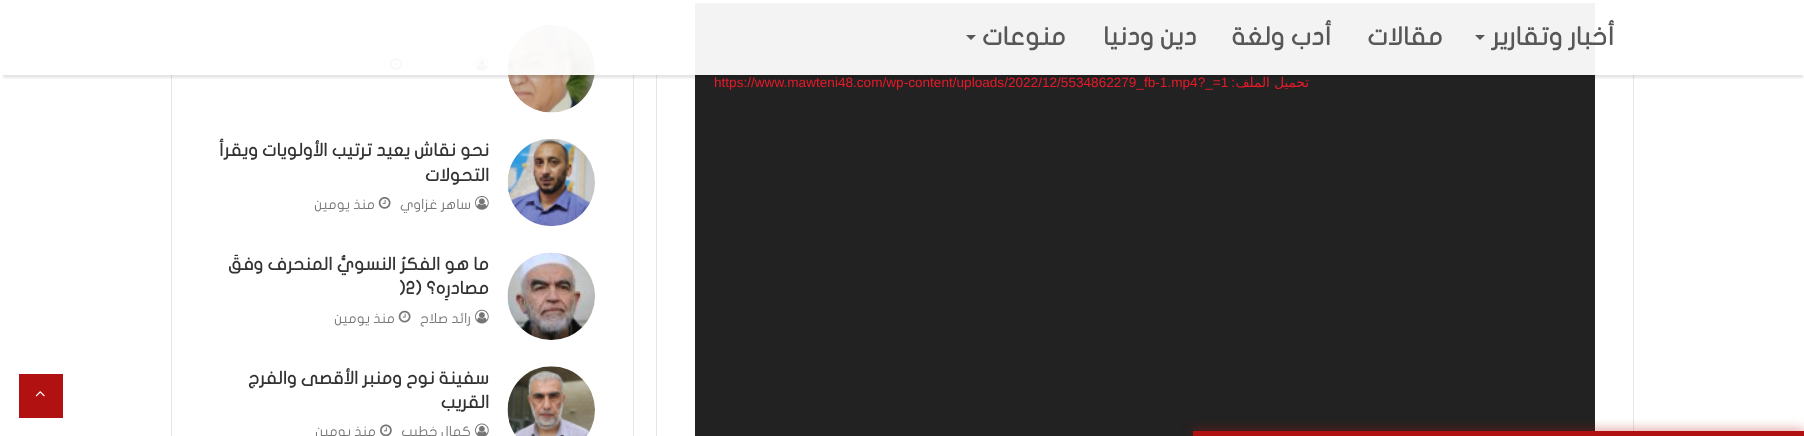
<svg xmlns="http://www.w3.org/2000/svg" width="1804" height="436">
	<defs>
		<clipPath id="clip1"><rect x="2" y="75" width="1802" height="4" /></clipPath>
	</defs>
	<rect width="100%" height="100%" fill="#FFFFFF" />
	<rect x="656.5" y="-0.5" width="977" height="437" fill="none" stroke="#E6E6E6" />
	<rect x="695" y="3" width="900" height="433" fill="#222222" />
	<rect x="171.5" y="-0.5" width="462" height="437" fill="none" stroke="#E6E6E6" />
	<image x="507" y="25" width="88" height="88" href="assets/img1.png" />
	<image x="475" y="57" width="14" height="14" href="assets/img2.png" />
	<image x="390" y="58" width="12" height="12" href="assets/img3.png" />
	<g clip-path="url(#clip1)">
		<rect x="3" y="8" width="1800" height="70" fill="#000000" fill-opacity="0.1" filter="blur(1px)" />
	</g>
	<rect x="171" y="0" width="1463" height="75" fill="#FFFFFF" fill-opacity="0.95" />
	<text x="1615" y="45" font-family="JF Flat" font-size="25" font-weight="700" direction="rtl" fill="#575757">أخبار وتقارير</text>
	<path d="M1475 35H1485L1480 40Z" fill="#575757" />
	<g font-family="JF Flat" font-size="25" font-weight="700" direction="rtl" fill="#575757">
		<text x="1443" y="45">مقالات</text>
		<text x="1332" y="45">أدب ولغة</text>
		<text x="1197" y="45">دين ودنيا</text>
		<text x="1066" y="45">منوعات</text>
	</g>
	<path d="M966 35H976L971 40Z" fill="#575757" />
	<text x="1309" y="87" font-family="DejaVu Sans" font-size="13.6" direction="rtl" fill="#E71A29">تحميل الملف</text>
	<text x="1235" y="87" font-family="Liberation Sans" font-size="13.6" direction="rtl" fill="#E71A29">:</text>
	<text x="714" y="87" font-family="Liberation Sans" font-size="13.6" fill="#E71A29">https://www.mawteni48.com/wp-content/uploads/2022/12/5534862279_fb-1.mp4?_=1</text>
	<image x="507" y="139" width="88" height="88" href="assets/img4.png" />
	<g font-family="JF Flat" font-size="17.5" font-weight="700" direction="rtl" fill="#333333">
		<text x="489" y="156">نحو نقاش يعيد ترتيب الأولويات ويقرأ</text>
		<text x="489" y="181">التحولات</text>
	</g>
	<image x="475" y="196" width="14" height="14" href="assets/img5.png" />
	<text x="471" y="209" font-family="JF Flat" font-size="13.75" direction="rtl" fill="#767676">ساهر غزاوي</text>
	<image x="378" y="197" width="13" height="12" href="assets/img6.png" />
	<text x="375" y="209" font-family="JF Flat" font-size="13.75" direction="rtl" fill="#767676">منذ يومين</text>
	<image x="507" y="252" width="88" height="88" href="assets/img7.png" />
	<g font-family="JF Flat" font-size="17.5" font-weight="700" direction="rtl" fill="#333333">
		<text x="489" y="270">ما هو الفكرُ النسويُّ المنحرف وفقَ</text>
		<text x="489" y="294">مصادرِه؟ (</text>
	</g>
	<text x="399" y="294" font-family="JF Flat" font-size="17.5" font-weight="700" fill="#333333">)2</text>
	<image x="475" y="309" width="14" height="15" href="assets/img8.png" />
	<text x="471" y="323" font-family="JF Flat" font-size="13.75" direction="rtl" fill="#767676">رائد صلاح</text>
	<image x="398" y="310" width="13" height="13" href="assets/img9.png" />
	<text x="395" y="323" font-family="JF Flat" font-size="13.75" direction="rtl" fill="#767676">منذ يومين</text>
	<image x="507" y="366" width="88" height="70" href="assets/img10.png" />
	<g font-family="JF Flat" font-size="17.5" font-weight="700" direction="rtl" fill="#333333">
		<text x="489" y="384">سفينة نوح ومنبر الأقصى والفرج</text>
		<text x="489" y="408">القريب</text>
	</g>
	<image x="475" y="423" width="14" height="13" href="assets/img11.png" />
	<text x="471" y="436" font-family="JF Flat" font-size="13.75" direction="rtl" fill="#767676">كمال خطيب</text>
	<image x="380" y="424" width="12" height="12" href="assets/img12.png" />
	<text x="376" y="436" font-family="JF Flat" font-size="13.75" direction="rtl" fill="#767676">منذ يومين</text>
	<rect x="19" y="374" width="44" height="44" fill="#B21111" />
	<image x="35" y="391" width="10" height="6" href="assets/img13.png" />
	<rect x="1193" y="431" width="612" height="5" fill="#B21111" fill-opacity="0.7" filter="blur(6px)" />
	<rect x="1193" y="431" width="611" height="5" fill="#B21111" />
</svg>
